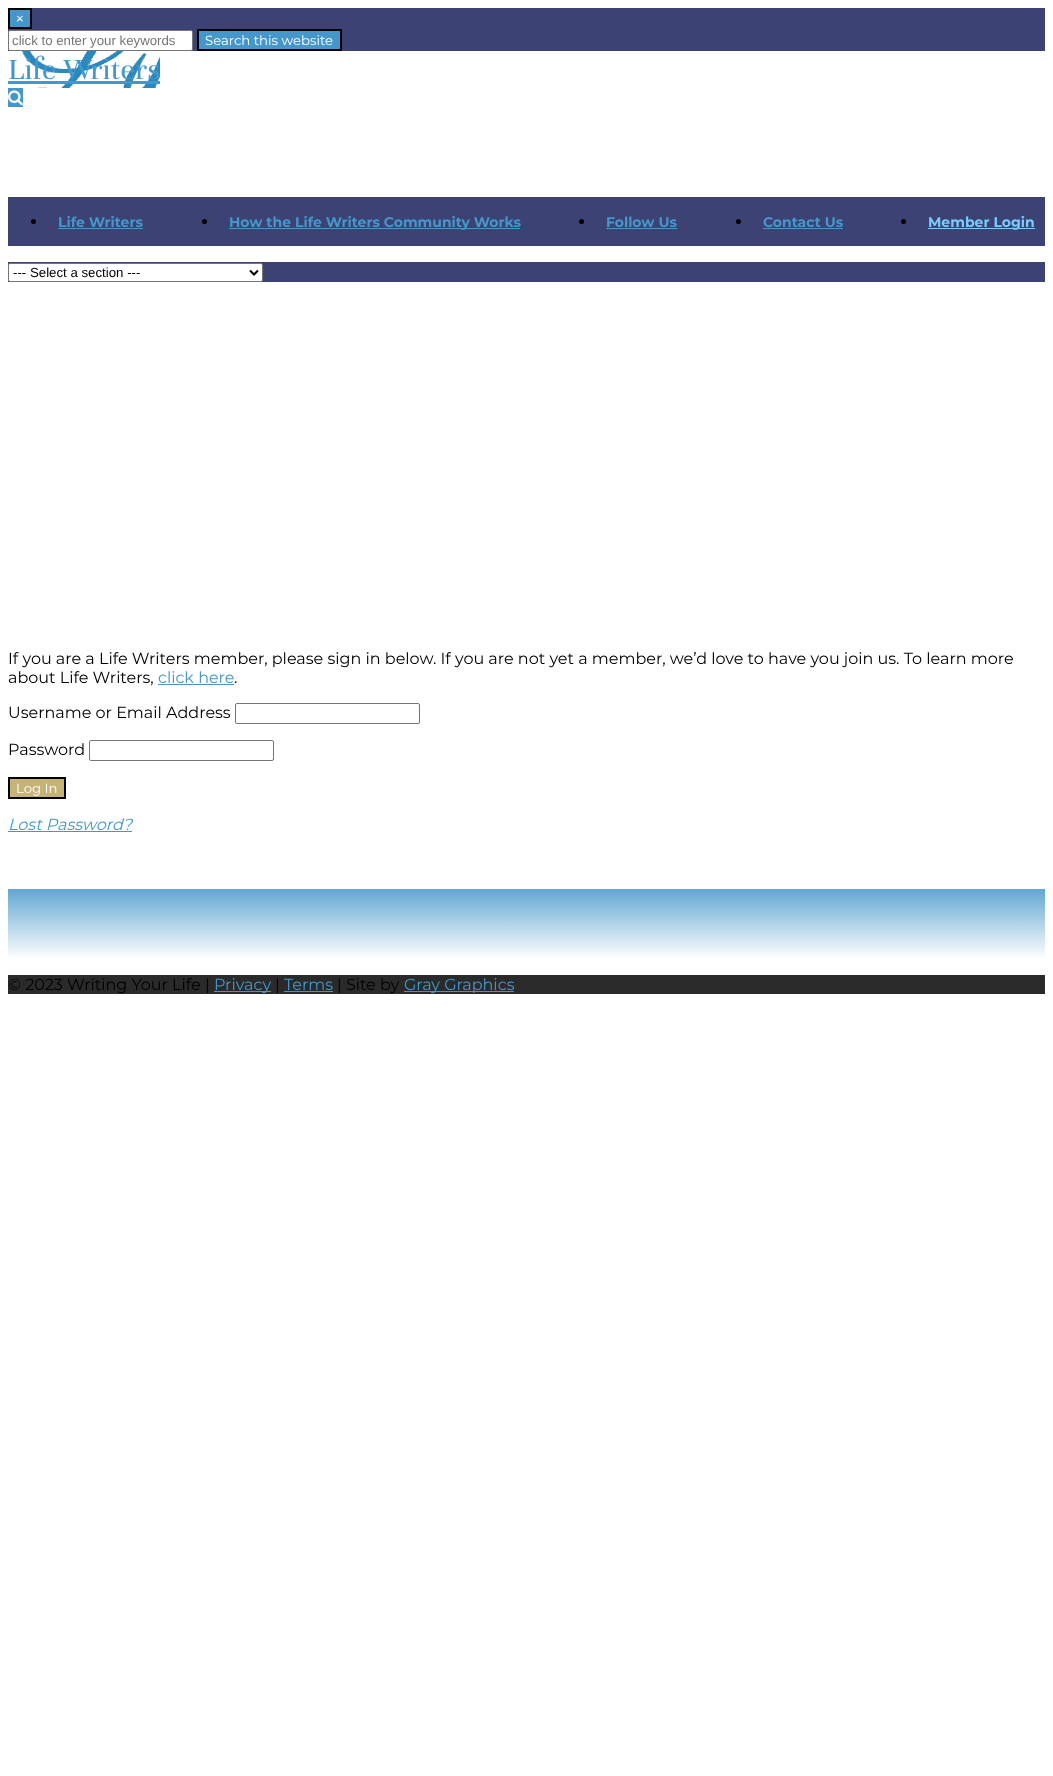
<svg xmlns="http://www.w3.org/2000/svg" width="1053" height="1776">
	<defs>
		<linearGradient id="g1" gradientUnits="userSpaceOnUse" x1="527" y1="889" x2="527" y2="959"><stop offset="0" stop-color="#62A7D2" /><stop offset="1" stop-color="#FFFFFF" /></linearGradient>
	</defs>
	<rect width="100%" height="100%" fill="#FFFFFF" />
	<rect x="8" y="8" width="1037" height="43" fill="#3C4374" />
	<rect x="9" y="9" width="22" height="19" fill="#4597CB" stroke="#000000" stroke-width="2" />
	<text x="16" y="23" font-family="Liberation Sans" font-size="13.25" fill="#FFFFFF">×</text>
	<rect x="8.5" y="30.5" width="184" height="20" rx="1.5" fill="#FFFFFF" stroke="#767676" />
	<text x="12" y="45" font-family="Liberation Sans" font-size="13.25" fill="#757575">click to enter your keywords</text>
	<rect x="198" y="30" width="143" height="20" fill="#4597CB" stroke="#000000" stroke-width="2" />
	<text x="205" y="45" font-family="Montserrat" font-size="13.25" fill="#FFFFFF">Search this website</text>
	<image x="22" y="51" width="138" height="37" href="assets/img1.png" />
	<text x="8" y="79" font-family="Unna" font-size="32" fill="#4597CB">Life Writers</text>
	<rect x="8" y="81" width="152" height="3" fill="#4597CB" />
	<rect x="8" y="88" width="15" height="19" fill="#4597CB" />
	<image x="8" y="90" width="15" height="16" href="assets/img2.png" />
	<rect x="8" y="197" width="1037" height="49" fill="#3C4374" />
	<circle cx="33.5" cy="221.5" r="2.5" fill="#000000" />
	<text x="58" y="227" font-family="Montserrat" font-size="14" font-weight="700" fill="#4597CB">Life Writers</text>
	<rect x="58" y="228" width="85" height="1" fill="#4597CB" />
	<circle cx="204.5" cy="221.5" r="2.5" fill="#000000" />
	<rect x="229" y="228" width="291" height="1" fill="#4597CB" />
	<text x="229" y="227" font-family="Montserrat" font-size="14" font-weight="700" fill="#4597CB">How the Life Writers Community Works</text>
	<circle cx="581.5" cy="221.5" r="2.5" fill="#000000" />
	<text x="606" y="227" font-family="Montserrat" font-size="14" font-weight="700" fill="#4597CB">Follow Us</text>
	<rect x="606" y="228" width="71" height="1" fill="#4597CB" />
	<circle cx="738.5" cy="221.5" r="2.5" fill="#000000" />
	<text x="763" y="227" font-family="Montserrat" font-size="14" font-weight="700" fill="#4597CB">Contact Us</text>
	<rect x="763" y="228" width="80" height="1" fill="#4597CB" />
	<circle cx="903.5" cy="221.5" r="2.5" fill="#000000" />
	<rect x="928" y="228" width="107" height="1" fill="#7ACBFF" />
	<text x="928" y="227" font-family="Montserrat" font-size="14" font-weight="700" fill="#7ACBFF">Member Login</text>
	<rect x="8" y="262" width="1037" height="20" fill="#3C4374" />
	<rect x="8.5" y="263.5" width="254" height="18" rx="1.5" fill="#FFFFFF" stroke="#767676" />
	<path d="M250 270.5L254 274.5L258 270.5" fill="none" stroke="#000000" stroke-width="2" />
	<text x="13" y="277" font-family="Liberation Sans" font-size="13.25" fill="#000000">--- Select a section ---</text>
	<g font-family="Montserrat" font-size="16" fill="#000000">
		<text x="8" y="664">If you are a Life Writers member, please sign in below. If you are not yet a member, we’d love to have you join us. To learn more</text>
		<text x="8" y="683">about Life Writers,</text>
	</g>
	<text x="158" y="683" font-family="Montserrat" font-size="16" fill="#4597CB">click here</text>
	<rect x="158" y="684" width="76" height="1" fill="#4597CB" />
	<g font-family="Montserrat" font-size="16" fill="#000000">
		<text x="234" y="683">.</text>
		<text x="8" y="718">Username or Email Address</text>
	</g>
	<rect x="235.5" y="703.5" width="184" height="20" rx="1.5" fill="none" stroke="#767676" />
	<text x="8" y="755" font-family="Montserrat" font-size="16" fill="#000000">Password</text>
	<rect x="89.5" y="740.5" width="184" height="20" rx="1.5" fill="none" stroke="#767676" />
	<rect x="9" y="778" width="56" height="20" fill="#C6B477" stroke="#000000" stroke-width="2" />
	<text x="16" y="793" font-family="Montserrat" font-size="13.25" fill="#FFFFFF">Log In</text>
	<text x="8" y="830" font-family="Montserrat" font-size="16" font-style="italic" fill="#4597CB">Lost Password?</text>
	<rect x="8" y="831" width="124" height="1" fill="#4597CB" />
	<rect x="8" y="889" width="1037" height="69" fill="url(#g1)" />
	<rect x="8" y="975" width="1037" height="19" fill="#2A2A2A" />
	<text x="8" y="990" font-family="Montserrat" font-size="16" fill="#000000">© 2023 Writing Your Life |</text>
	<rect x="214" y="991" width="57" height="1" fill="#4597CB" />
	<text x="214" y="990" font-family="Montserrat" font-size="16" fill="#4597CB">Privacy</text>
	<text x="275" y="990" font-family="Montserrat" font-size="16" fill="#000000">|</text>
	<text x="284" y="990" font-family="Montserrat" font-size="16" fill="#4597CB">Terms</text>
	<rect x="284" y="991" width="49" height="1" fill="#4597CB" />
	<text x="337" y="990" font-family="Montserrat" font-size="16" fill="#000000">| Site by</text>
	<rect x="404" y="991" width="110" height="1" fill="#4597CB" />
	<text x="404" y="990" font-family="Montserrat" font-size="16" fill="#4597CB">Gray Graphics</text>
</svg>
